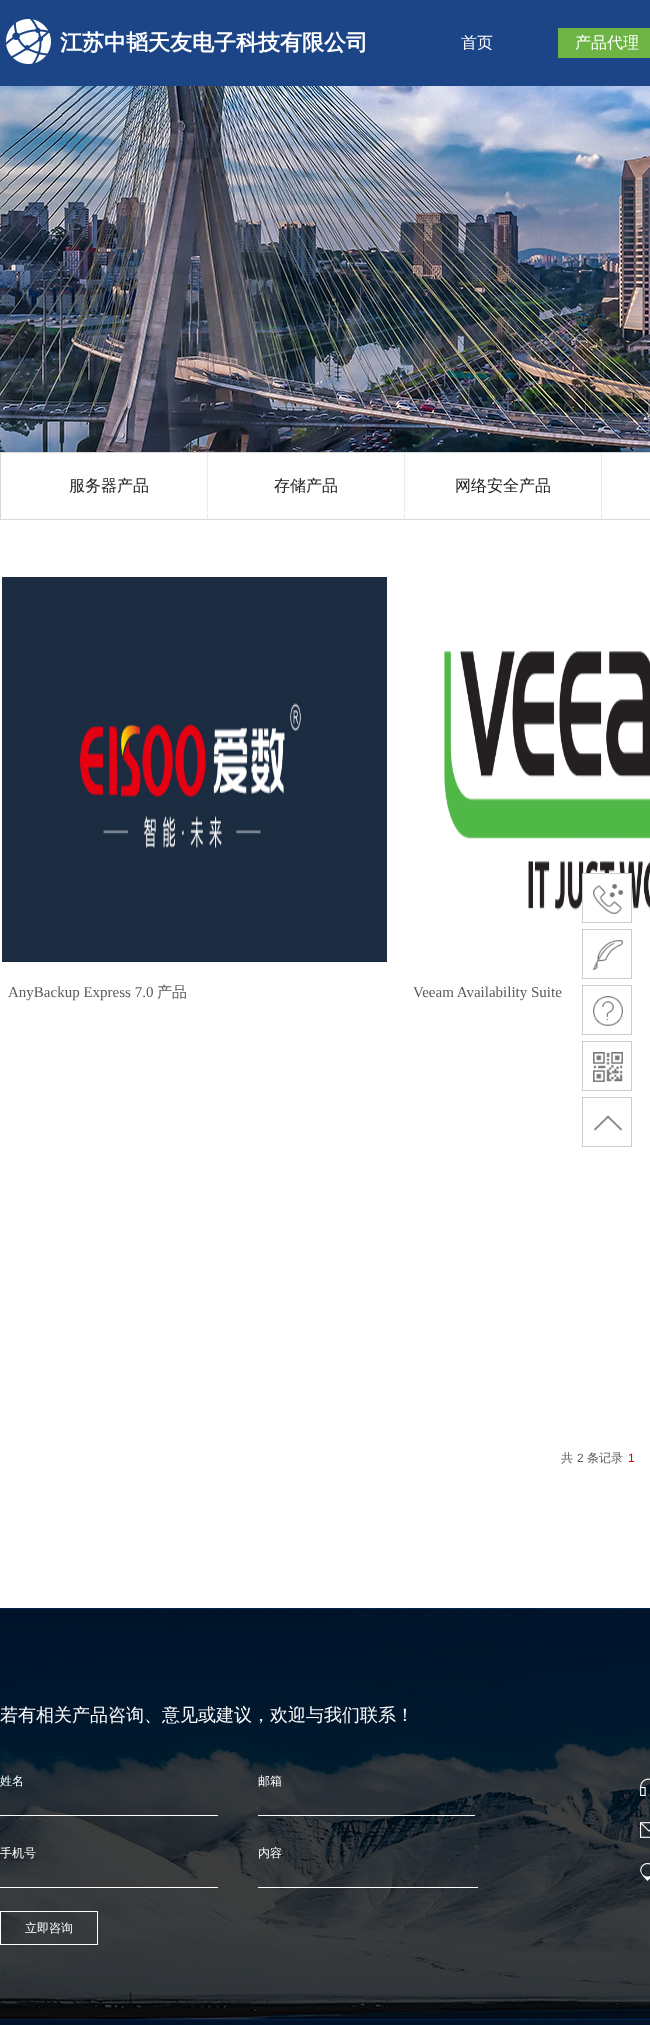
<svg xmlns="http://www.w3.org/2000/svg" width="650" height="2025">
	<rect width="100%" height="100%" fill="#FFFFFF" />
	<rect x="0" y="0" width="650" height="86" fill="#1C4587" />
	<image x="5" y="19" width="46" height="45" href="assets/img1.png" />
	<text x="60" y="50" font-family="WenQuanYi Zen Hei" font-size="22" font-weight="700" fill="#FFFFFF">江苏中韬天友电子科技有限公司</text>
	<text x="461" y="48" font-family="WenQuanYi Zen Hei" font-size="16" font-weight="500" fill="#FFFFFF">首页</text>
	<rect x="558" y="28" width="92" height="30" fill="#6DB445" />
	<text x="575" y="48" font-family="WenQuanYi Zen Hei" font-size="16" font-weight="500" fill="#FFFFFF">产品代理</text>
	<image x="0" y="86" width="650" height="366" href="assets/img2.png" />
	<rect x="0.5" y="452.5" width="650" height="67" fill="none" stroke="#D9D9D9" />
	<path d="M207.5 453V519" fill="none" stroke="#D9D9D9" stroke-dasharray="1 1" />
	<text x="69" y="491" font-family="WenQuanYi Zen Hei" font-size="16" font-weight="500" fill="#222222">服务器产品</text>
	<path d="M404.5 453V519" fill="none" stroke="#D9D9D9" stroke-dasharray="1 1" />
	<text x="274" y="491" font-family="WenQuanYi Zen Hei" font-size="16" font-weight="500" fill="#222222">存储产品</text>
	<path d="M601.5 453V519" fill="none" stroke="#D9D9D9" stroke-dasharray="1 1" />
	<text x="455" y="491" font-family="WenQuanYi Zen Hei" font-size="16" font-weight="500" fill="#222222">网络安全产品</text>
	<image x="2" y="577" width="385" height="385" href="assets/img3.png" />
	<text x="8" y="997" font-family="Liberation Serif" font-size="15" fill="#5A5A5A">AnyBackup Express 7.0</text>
	<text x="157" y="997" font-family="WenQuanYi Zen Hei" font-size="15" font-weight="500" fill="#5A5A5A">产品</text>
	<image x="444" y="651" width="206" height="259" href="assets/img4.png" />
	<text x="413" y="997" font-family="Liberation Serif" font-size="15" fill="#5A5A5A">Veeam Availability Suite</text>
	<text x="561" y="1462" font-family="WenQuanYi Zen Hei" font-size="12" font-weight="500" fill="#5A5A5A">共</text>
	<text x="577" y="1462" font-family="Liberation Sans" font-size="12" fill="#5A5A5A">2</text>
	<text x="587" y="1462" font-family="WenQuanYi Zen Hei" font-size="12" font-weight="500" fill="#5A5A5A">条记录</text>
	<text x="628" y="1462" font-family="Liberation Sans" font-size="12" fill="#DD0000">1</text>
	<image x="0" y="1608" width="650" height="411" href="assets/img5.png" />
	<text x="0" y="1721" font-family="WenQuanYi Zen Hei" font-size="18" font-weight="500" fill="#FFFFFF">若有相关产品咨询、意见或建议，欢迎与我们联系！</text>
	<text x="0" y="1785" font-family="WenQuanYi Zen Hei" font-size="12" font-weight="500" fill="#FFFFFF">姓名</text>
	<rect x="0" y="1815" width="218" height="1" fill="#FFFFFF" />
	<text x="258" y="1785" font-family="WenQuanYi Zen Hei" font-size="12" font-weight="500" fill="#FFFFFF">邮箱</text>
	<rect x="258" y="1815" width="217" height="1" fill="#FFFFFF" />
	<text x="0" y="1857" font-family="WenQuanYi Zen Hei" font-size="12" font-weight="500" fill="#FFFFFF">手机号</text>
	<rect x="0" y="1887" width="218" height="1" fill="#FFFFFF" />
	<text x="258" y="1857" font-family="WenQuanYi Zen Hei" font-size="12" font-weight="500" fill="#FFFFFF">内容</text>
	<rect x="258" y="1887" width="220" height="1" fill="#FFFFFF" />
	<rect x="0.5" y="1911.5" width="97" height="33" fill="none" stroke="#FFFFFF" />
	<text x="25" y="1932" font-family="WenQuanYi Zen Hei" font-size="12" font-weight="500" fill="#FFFFFF">立即咨询</text>
	<image x="640" y="1778" width="10" height="18" href="assets/img6.png" />
	<image x="640" y="1822" width="10" height="16" href="assets/img7.png" />
	<image x="640" y="1863" width="10" height="18" href="assets/img8.png" />
	<image x="0" y="2019" width="650" height="6" href="assets/img9.png" />
	<rect x="583" y="874" width="48" height="36" fill="#FFFFFF" />
	<rect x="582.5" y="873.5" width="49" height="49" fill="none" stroke="#CCCCCC" />
	<image x="593" y="884" width="30" height="30" href="assets/img10.png" />
	<rect x="582.5" y="929.5" width="49" height="49" fill="none" stroke="#CCCCCC" />
	<image x="593" y="940" width="30" height="30" href="assets/img11.png" />
	<rect x="582.5" y="985.5" width="49" height="49" fill="none" stroke="#CCCCCC" />
	<image x="593" y="996" width="30" height="30" href="assets/img12.png" />
	<rect x="582.5" y="1041.5" width="49" height="49" fill="none" stroke="#CCCCCC" />
	<image x="593" y="1052" width="30" height="30" href="assets/img13.png" />
	<rect x="582.5" y="1097.5" width="49" height="49" fill="none" stroke="#CCCCCC" />
	<image x="593" y="1115" width="30" height="16" href="assets/img14.png" />
</svg>
